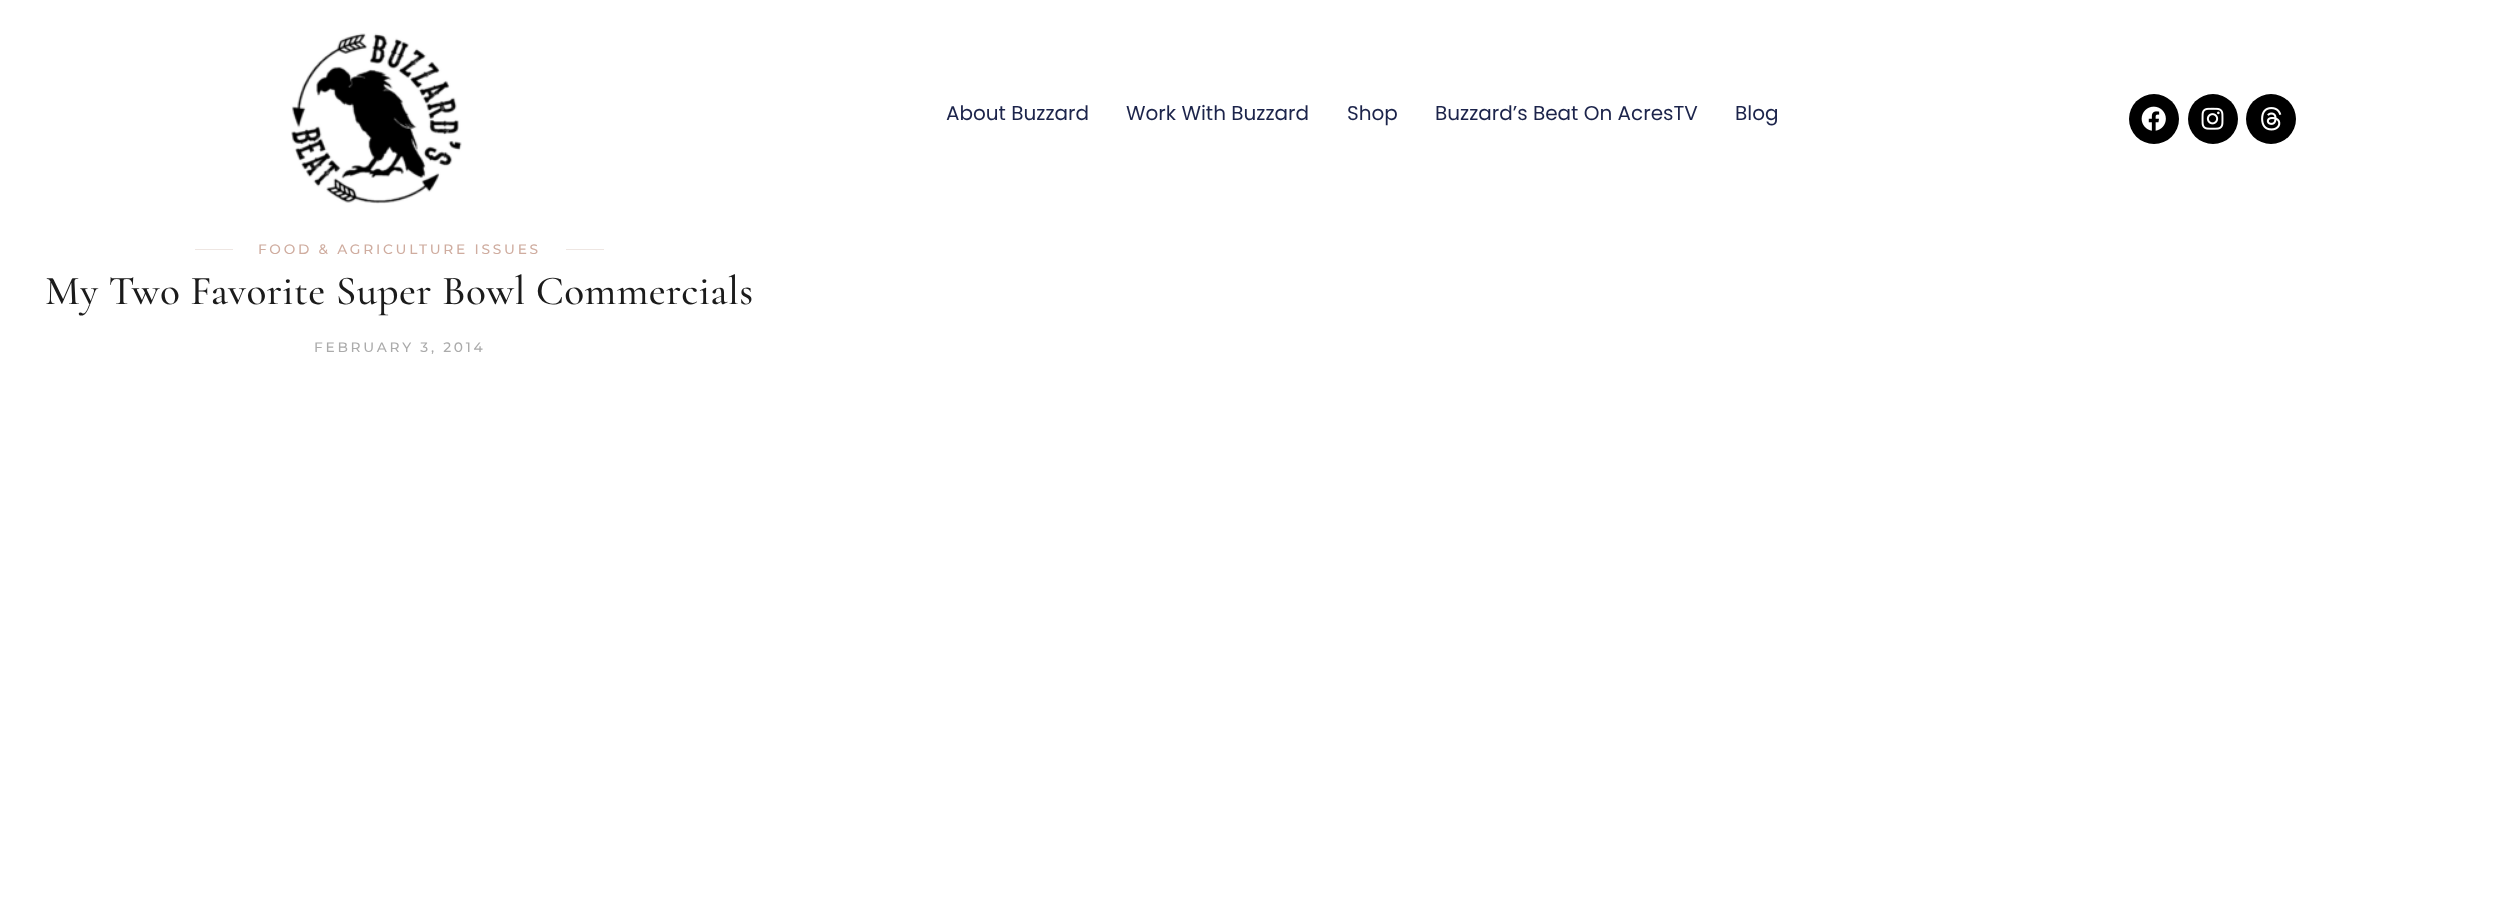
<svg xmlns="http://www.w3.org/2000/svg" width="2496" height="916">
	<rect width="100%" height="100%" fill="#FFFFFF" />
	<image x="291" y="33" width="171" height="171" href="assets/img1.png" />
	<g font-family="Poppins" font-size="20" fill="#1C244B">
		<text x="946" y="120">About Buzzard</text>
		<text x="1126" y="120">Work With Buzzard</text>
		<text x="1347" y="120">Shop</text>
		<text x="1435" y="120">Buzzard’s Beat On AcresTV</text>
		<text x="1735" y="120">Blog</text>
	</g>
	<circle cx="2154" cy="119" r="25" fill="#000000" />
	<image x="2141" y="106" width="25" height="25" href="assets/img2.png" />
	<circle cx="2213" cy="119" r="25" fill="#000000" />
	<image x="2201" y="107" width="23" height="23" href="assets/img3.png" />
	<circle cx="2271" cy="119" r="25" fill="#000000" />
	<image x="2261" y="107" width="21" height="24" href="assets/img4.png" />
	<rect x="195" y="249" width="38" height="1" fill="#EEE6E2" />
	<text x="258" y="254" font-family="Montserrat" font-size="13.75" font-weight="500" letter-spacing="2.75" fill="#CFAC9F">FOOD &amp; AGRICULTURE ISSUES</text>
	<rect x="566" y="249" width="38" height="1" fill="#EEE6E2" />
	<text x="45" y="304" font-family="Cormorant Garamond" font-size="41.25" font-weight="500" letter-spacing="0.4" fill="#1B1B1B">My Two Favorite Super Bowl Commercials</text>
	<text x="314" y="352" font-family="Montserrat" font-size="13.75" font-weight="500" letter-spacing="2.75" fill="#ABABAB">FEBRUARY 3, 2014</text>
</svg>
